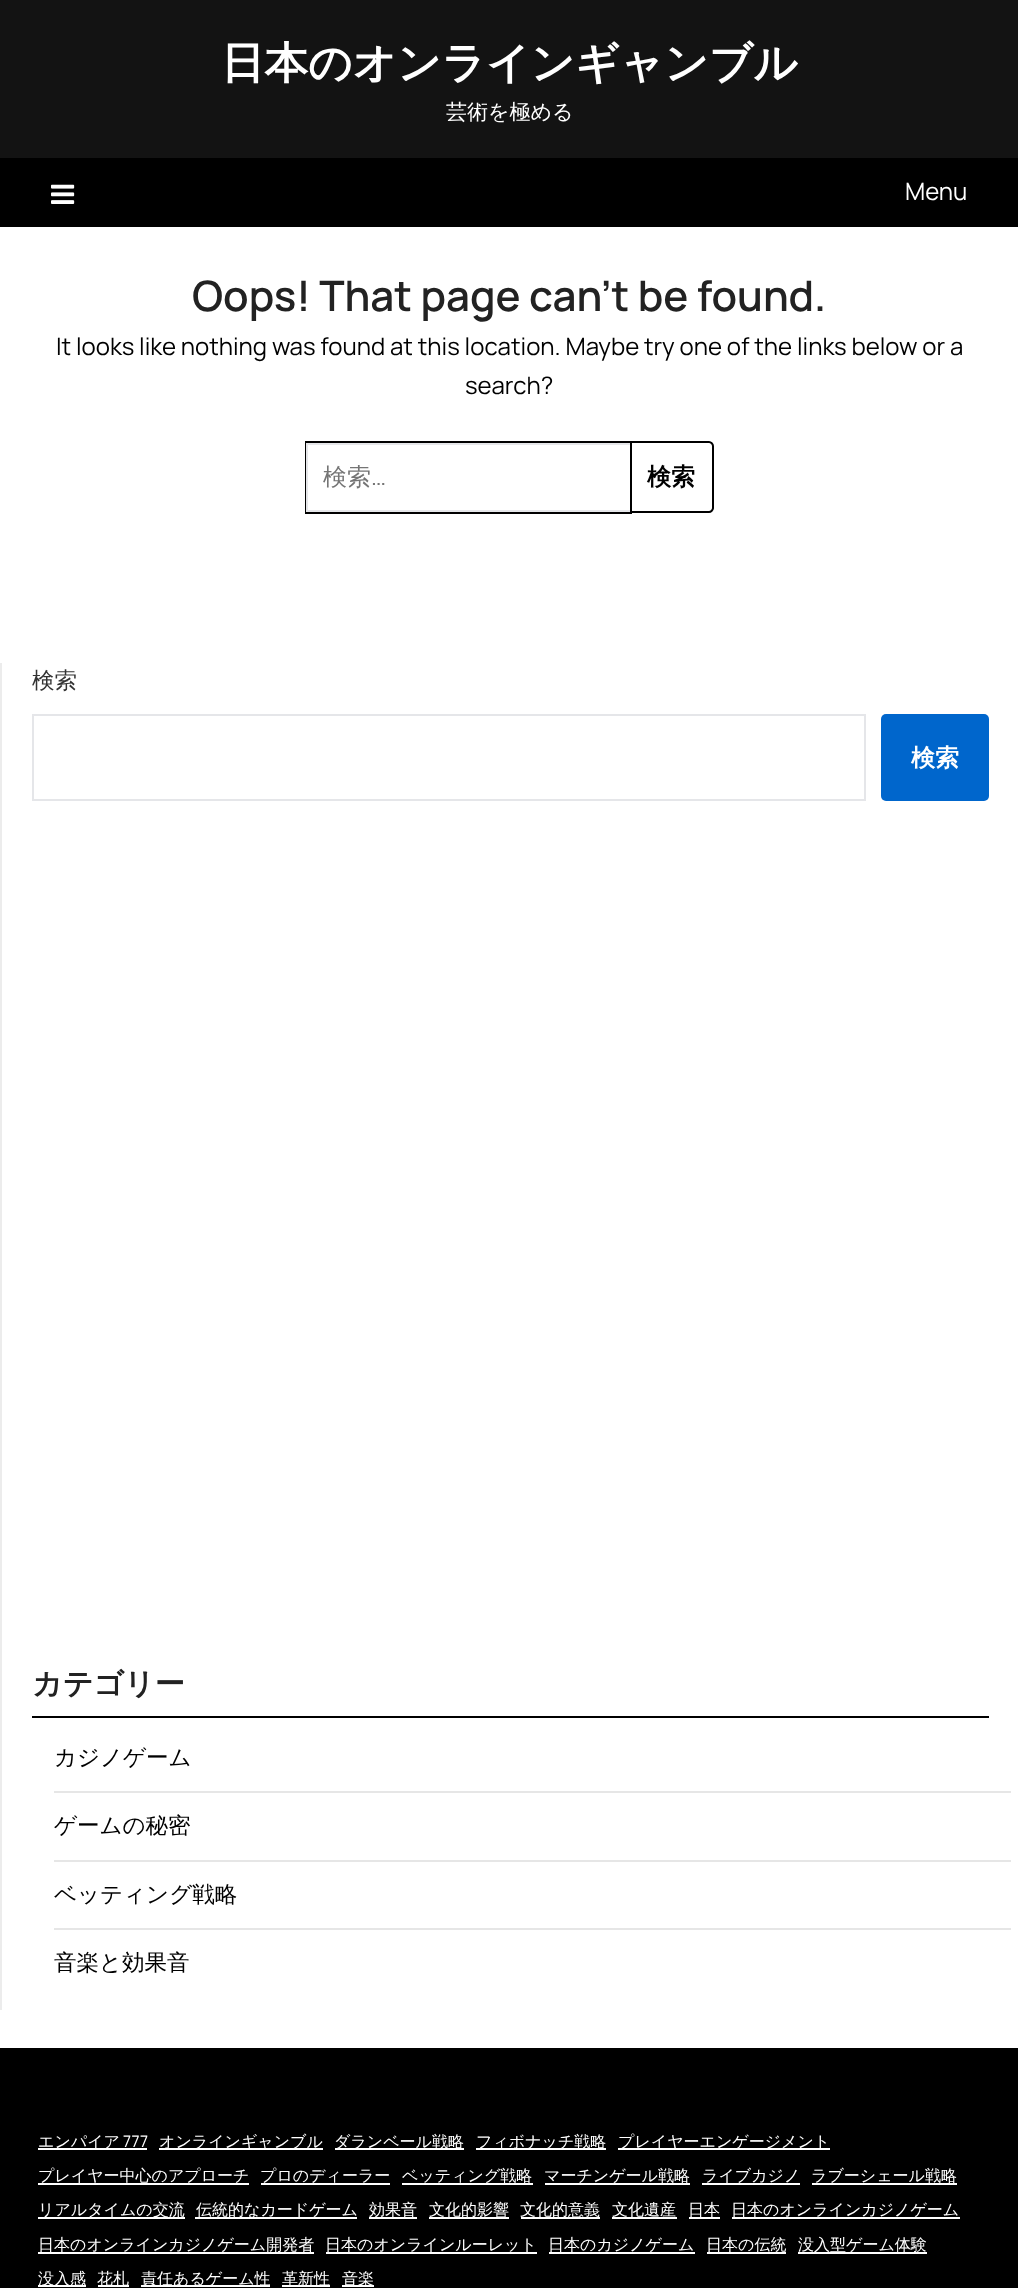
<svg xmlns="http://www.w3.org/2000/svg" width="1018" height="2288">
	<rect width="100%" height="100%" fill="#FFFFFF" />
	<rect x="0" y="0" width="1018" height="158" fill="#131313" />
	<text x="221" y="78" font-family="WenQuanYi Zen Hei" font-size="43.5" font-weight="700" fill="#FFFFFF">日本のオンラインギャンブル</text>
	<text x="446" y="119" font-family="WenQuanYi Zen Hei" font-size="21" font-weight="500" fill="#FFFFFF">芸術を極める</text>
	<rect x="0" y="158" width="1018" height="69" fill="#000000" />
	<image x="51" y="184" width="24" height="20" href="assets/img1.png" />
	<text x="905" y="200" font-family="Manrope" font-size="24" fill="#FFFFFF">Menu</text>
	<text x="192" y="311" font-family="Manrope" font-size="42" font-weight="600" fill="#222222">Oops! That page can’t be found.</text>
	<g font-family="Manrope" font-size="24" fill="#000000">
		<text x="56" y="355">It looks like nothing was found at this location. Maybe try one of the links below or a</text>
		<text x="465" y="394">search?</text>
	</g>
	<rect x="305" y="441" width="327" height="2" fill="#000000" />
	<rect x="305" y="512" width="327" height="2" fill="#000000" />
	<rect x="305" y="441" width="2" height="72" fill="#000000" />
	<rect x="307" y="444" width="324" height="67" fill="none" stroke="#E5E6E9" stroke-width="2" />
	<text x="323" y="485" font-family="WenQuanYi Zen Hei" font-size="24" font-weight="500" fill="#757575">検索</text>
	<text x="371" y="485" font-family="Manrope" font-size="24" fill="#757575">…</text>
	<path d="M631 442H709C711 442 713 444 713 446V508C713 510 711 512 709 512H631Z" fill="none" stroke="#000000" stroke-width="2" />
	<text x="647" y="485" font-family="WenQuanYi Zen Hei" font-size="24" font-weight="700" fill="#000000">検索</text>
	<rect x="0" y="663" width="2" height="1347" fill="#ECECEC" />
	<text x="32" y="688" font-family="WenQuanYi Zen Hei" font-size="22.5" font-weight="500" fill="#333333">検索</text>
	<rect x="33" y="715" width="832" height="85" fill="none" stroke="#E5E6E9" stroke-width="2" />
	<rect x="881" y="714" width="108" height="87" rx="5" fill="#0066CC" />
	<text x="911" y="766" font-family="WenQuanYi Zen Hei" font-size="24" font-weight="700" fill="#FFFFFF">検索</text>
	<rect x="32" y="1716" width="957" height="2" fill="#000000" />
	<text x="32" y="1694" font-family="WenQuanYi Zen Hei" font-size="30" font-weight="700" fill="#222222">カテゴリー</text>
	<rect x="54" y="1791" width="957" height="2" fill="#E6E6E6" />
	<text x="54" y="1765" font-family="WenQuanYi Zen Hei" font-size="22.5" font-weight="500" fill="#000000">カジノゲーム</text>
	<rect x="54" y="1860" width="957" height="2" fill="#E6E6E6" />
	<text x="54" y="1833" font-family="WenQuanYi Zen Hei" font-size="22.5" font-weight="500" fill="#000000">ゲームの秘密</text>
	<rect x="54" y="1928" width="957" height="2" fill="#E6E6E6" />
	<g font-family="WenQuanYi Zen Hei" font-size="22.5" font-weight="500" fill="#000000">
		<text x="54" y="1902">ベッティング戦略</text>
		<text x="54" y="1970">音楽と効果音</text>
	</g>
	<rect x="0" y="2048" width="1018" height="240" fill="#000000" />
	<rect x="38" y="2148" width="109" height="2" fill="#FFFFFF" />
	<text x="38" y="2147" font-family="WenQuanYi Zen Hei" font-size="16" font-weight="500" fill="#FFFFFF">エンパイア</text>
	<text x="123" y="2147" font-family="Manrope" font-size="16" fill="#FFFFFF">777</text>
	<rect x="159" y="2148" width="164" height="2" fill="#FFFFFF" />
	<text x="159" y="2147" font-family="WenQuanYi Zen Hei" font-size="16" font-weight="500" fill="#FFFFFF">オンラインギャンブル</text>
	<rect x="335" y="2148" width="129" height="2" fill="#FFFFFF" />
	<text x="334" y="2147" font-family="WenQuanYi Zen Hei" font-size="16" font-weight="500" fill="#FFFFFF">ダランベール戦略</text>
	<rect x="476" y="2148" width="130" height="2" fill="#FFFFFF" />
	<text x="476" y="2147" font-family="WenQuanYi Zen Hei" font-size="16" font-weight="500" fill="#FFFFFF">フィボナッチ戦略</text>
	<rect x="618" y="2148" width="212" height="2" fill="#FFFFFF" />
	<text x="618" y="2147" font-family="WenQuanYi Zen Hei" font-size="16" font-weight="500" fill="#FFFFFF">プレイヤーエンゲージメント</text>
	<rect x="38" y="2183" width="211" height="2" fill="#FFFFFF" />
	<g font-family="WenQuanYi Zen Hei" font-size="16" font-weight="500" fill="#FFFFFF">
		<text x="38" y="2181">プレイヤー中心のアプローチ</text>
		<text x="260" y="2181">プロのディーラー</text>
	</g>
	<rect x="261" y="2183" width="129" height="2" fill="#FFFFFF" />
	<rect x="402" y="2183" width="131" height="2" fill="#FFFFFF" />
	<text x="402" y="2181" font-family="WenQuanYi Zen Hei" font-size="16" font-weight="500" fill="#FFFFFF">ベッティング戦略</text>
	<rect x="545" y="2183" width="145" height="2" fill="#FFFFFF" />
	<text x="544" y="2181" font-family="WenQuanYi Zen Hei" font-size="16" font-weight="500" fill="#FFFFFF">マーチンゲール戦略</text>
	<rect x="702" y="2183" width="98" height="2" fill="#FFFFFF" />
	<text x="702" y="2181" font-family="WenQuanYi Zen Hei" font-size="16" font-weight="500" fill="#FFFFFF">ライブカジノ</text>
	<rect x="812" y="2183" width="145" height="2" fill="#FFFFFF" />
	<text x="811" y="2181" font-family="WenQuanYi Zen Hei" font-size="16" font-weight="500" fill="#FFFFFF">ラブーシェール戦略</text>
	<rect x="38" y="2217" width="147" height="2" fill="#FFFFFF" />
	<text x="38" y="2215" font-family="WenQuanYi Zen Hei" font-size="16" font-weight="500" fill="#FFFFFF">リアルタイムの交流</text>
	<rect x="195" y="2217" width="162" height="2" fill="#FFFFFF" />
	<text x="196" y="2215" font-family="WenQuanYi Zen Hei" font-size="16" font-weight="500" fill="#FFFFFF">伝統的なカードゲーム</text>
	<rect x="369" y="2217" width="48" height="2" fill="#FFFFFF" />
	<text x="369" y="2215" font-family="WenQuanYi Zen Hei" font-size="16" font-weight="500" fill="#FFFFFF">効果音</text>
	<rect x="429" y="2217" width="80" height="2" fill="#FFFFFF" />
	<text x="429" y="2215" font-family="WenQuanYi Zen Hei" font-size="16" font-weight="500" fill="#FFFFFF">文化的影響</text>
	<rect x="521" y="2217" width="79" height="2" fill="#FFFFFF" />
	<g font-family="WenQuanYi Zen Hei" font-size="16" font-weight="500" fill="#FFFFFF">
		<text x="520" y="2215">文化的意義</text>
		<text x="612" y="2215">文化遺産</text>
	</g>
	<rect x="612" y="2217" width="65" height="2" fill="#FFFFFF" />
	<text x="688" y="2215" font-family="WenQuanYi Zen Hei" font-size="16" font-weight="500" fill="#FFFFFF">日本</text>
	<rect x="689" y="2217" width="31" height="2" fill="#FFFFFF" />
	<rect x="732" y="2217" width="228" height="2" fill="#FFFFFF" />
	<text x="731" y="2215" font-family="WenQuanYi Zen Hei" font-size="16" font-weight="500" fill="#FFFFFF">日本のオンラインカジノゲーム</text>
	<rect x="38" y="2252" width="276" height="2" fill="#FFFFFF" />
	<text x="38" y="2250" font-family="WenQuanYi Zen Hei" font-size="16" font-weight="500" fill="#FFFFFF">日本のオンラインカジノゲーム開発者</text>
	<rect x="326" y="2252" width="211" height="2" fill="#FFFFFF" />
	<text x="325" y="2250" font-family="WenQuanYi Zen Hei" font-size="16" font-weight="500" fill="#FFFFFF">日本のオンラインルーレット</text>
	<rect x="549" y="2252" width="146" height="2" fill="#FFFFFF" />
	<text x="548" y="2250" font-family="WenQuanYi Zen Hei" font-size="16" font-weight="500" fill="#FFFFFF">日本のカジノゲーム</text>
	<rect x="707" y="2252" width="79" height="2" fill="#FFFFFF" />
	<text x="706" y="2250" font-family="WenQuanYi Zen Hei" font-size="16" font-weight="500" fill="#FFFFFF">日本の伝統</text>
	<rect x="798" y="2252" width="129" height="2" fill="#FFFFFF" />
	<text x="798" y="2250" font-family="WenQuanYi Zen Hei" font-size="16" font-weight="500" fill="#FFFFFF">没入型ゲーム体験</text>
	<rect x="38" y="2285" width="48" height="2" fill="#FFFFFF" />
	<text x="38" y="2284" font-family="WenQuanYi Zen Hei" font-size="16" font-weight="500" fill="#FFFFFF">没入感</text>
	<rect x="98" y="2285" width="31" height="2" fill="#FFFFFF" />
	<text x="97" y="2284" font-family="WenQuanYi Zen Hei" font-size="16" font-weight="500" fill="#FFFFFF">花札</text>
	<rect x="141" y="2285" width="129" height="2" fill="#FFFFFF" />
	<text x="141" y="2284" font-family="WenQuanYi Zen Hei" font-size="16" font-weight="500" fill="#FFFFFF">責任あるゲーム性</text>
	<rect x="282" y="2285" width="48" height="2" fill="#FFFFFF" />
	<text x="282" y="2284" font-family="WenQuanYi Zen Hei" font-size="16" font-weight="500" fill="#FFFFFF">革新性</text>
	<rect x="342" y="2285" width="32" height="2" fill="#FFFFFF" />
	<text x="342" y="2284" font-family="WenQuanYi Zen Hei" font-size="16" font-weight="500" fill="#FFFFFF">音楽</text>
</svg>
